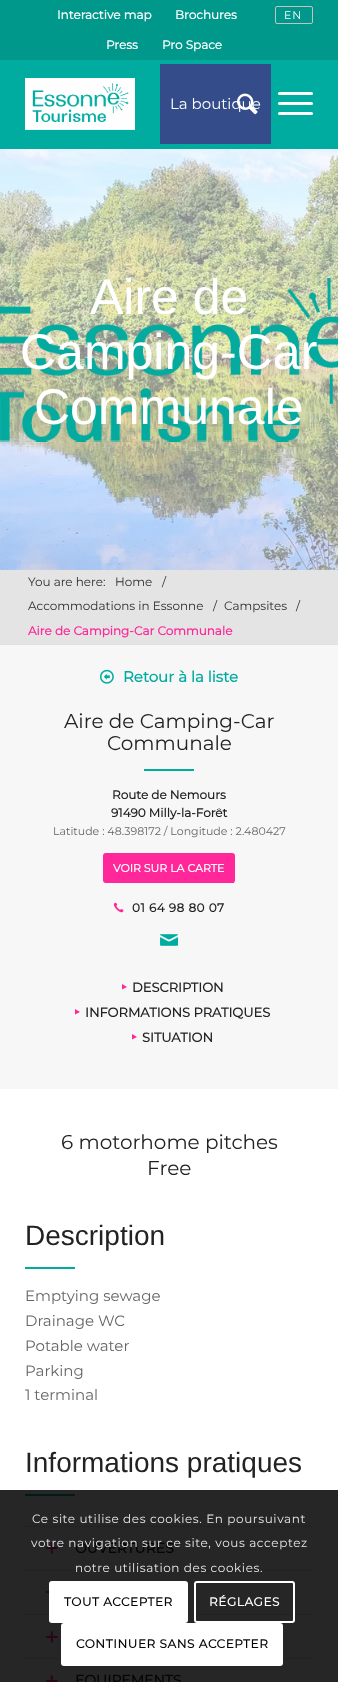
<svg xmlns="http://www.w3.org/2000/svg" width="338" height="1682">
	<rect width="100%" height="100%" fill="#FFFFFF" />
	<rect x="0" y="1490" width="338" height="192" fill="#262626" />
	<rect x="0" y="0" width="338" height="60" fill="#00988B" />
	<g font-family="Montserrat" font-size="12" font-weight="700" fill="#FFFFFF">
		<text x="57" y="19">Interactive map</text>
		<text x="175" y="19">Brochures</text>
		<text x="106" y="49">Press</text>
		<text x="162" y="49">Pro Space</text>
	</g>
	<rect x="275.5" y="6.5" width="37" height="17" rx="1.5" fill="none" stroke="#C3C3C3" />
	<text x="284" y="19" font-family="Montserrat" font-size="11" font-weight="100" letter-spacing="1" fill="#FFFFFF">EN</text>
	<rect x="0" y="60" width="338" height="89" fill="#00ABA0" />
	<image x="25" y="78" width="110" height="52" href="assets/img1.png" />
	<rect x="160" y="64" width="111" height="80" fill="#344D8A" />
	<text x="170" y="109" font-family="Montserrat" font-size="15" font-weight="100" fill="#FFFFFF">La boutique</text>
	<image x="237" y="93" width="21" height="22" href="assets/img2.png" />
	<rect x="278" y="102" width="35" height="3" rx="1.5" fill="#FFFFFF" />
	<rect x="278" y="92" width="35" height="3" rx="1.5" fill="#FFFFFF" />
	<rect x="278" y="112" width="35" height="3" rx="1.5" fill="#FFFFFF" />
	<image x="0" y="149" width="338" height="421" href="assets/img3.png" />
	<g font-family="Liberation Sans" font-size="50" fill="#FFFFFF">
		<text x="90" y="314">Aire de</text>
		<text x="20" y="369">Camping-Car</text>
		<text x="34" y="424">Communale</text>
	</g>
	<rect x="0" y="570" width="338" height="74" fill="#E4E4E4" />
	<g font-family="Montserrat" font-size="12" font-weight="100" fill="#2E2D30">
		<text x="28" y="586">You are here:</text>
		<text x="115" y="586">Home</text>
		<text x="162" y="586">/</text>
		<text x="28" y="610">Accommodations in Essonne</text>
		<text x="213" y="610">/</text>
		<text x="224" y="610">Campsites</text>
		<text x="296" y="610">/</text>
	</g>
	<text x="28" y="635" font-family="Montserrat" font-size="12" font-weight="700" fill="#FF2799">Aire de Camping-Car Communale</text>
	<rect x="0" y="644" width="338" height="1" fill="#E1E1E1" />
	<rect x="0" y="645" width="338" height="444" fill="#F7F7F7" />
	<image x="100" y="669" width="14" height="15" href="assets/img4.png" />
	<text x="123" y="682" font-family="Montserrat" font-size="15" font-weight="700" fill="#00ABA0">Retour à la liste</text>
	<g font-family="Montserrat" font-size="20" font-weight="100" fill="#222222">
		<text x="64" y="728">Aire de Camping-Car</text>
		<text x="107" y="750">Communale</text>
	</g>
	<rect x="144" y="769" width="50" height="2" fill="#00ABA0" />
	<g font-family="Montserrat" font-size="12" font-weight="700" fill="#222222">
		<text x="112" y="799">Route de Nemours</text>
		<text x="111" y="817">91490 Milly-la-Forêt</text>
	</g>
	<text x="53" y="835" font-family="Montserrat" font-size="11" font-weight="100" fill="#666666">Latitude : 48.398172 / Longitude : 2.480427</text>
	<rect x="103" y="853" width="132" height="30" rx="3" fill="#FF2799" />
	<rect x="105" y="882" width="129" height="1" fill="#FF2799" />
	<text x="113" y="872" font-family="Montserrat" font-size="11" font-weight="700" fill="#FFFFFF">VOIR SUR LA CARTE</text>
	<image x="113" y="902" width="11" height="11" href="assets/img5.png" />
	<text x="132" y="912" font-family="Montserrat" font-size="12" font-weight="700" letter-spacing="0.5" fill="#222222">01 64 98 80 07</text>
	<image x="160" y="934" width="19" height="12" href="assets/img6.png" />
	<path d="M122 984L127 987L122 989.5Z" fill="#FF2799" />
	<text x="132" y="992" font-family="Montserrat" font-size="13" font-weight="700" fill="#222222">DESCRIPTION</text>
	<path d="M75 1009L80 1012L75 1014.5Z" fill="#FF2799" />
	<text x="85" y="1017" font-family="Montserrat" font-size="13" font-weight="700" fill="#222222">INFORMATIONS PRATIQUES</text>
	<path d="M132 1034L137 1037L132 1039.5Z" fill="#FF2799" />
	<text x="142" y="1042" font-family="Montserrat" font-size="13" font-weight="700" fill="#222222">SITUATION</text>
	<g font-family="Montserrat" font-size="20" font-weight="100" fill="#222222">
		<text x="61" y="1149">6 motorhome pitches</text>
		<text x="147" y="1175">Free</text>
	</g>
	<text x="25" y="1245" font-family="Liberation Sans" font-size="28" fill="#222222">Description</text>
	<rect x="25" y="1267" width="50" height="2" fill="#00ABA0" />
	<g font-family="Montserrat" font-size="15" font-weight="100" fill="#666666">
		<text x="25" y="1301">Emptying sewage</text>
		<text x="25" y="1326">Drainage WC</text>
		<text x="25" y="1351">Potable water</text>
		<text x="25" y="1376">Parking</text>
		<text x="25" y="1400">1 terminal</text>
	</g>
	<text x="25" y="1472" font-family="Liberation Sans" font-size="28" fill="#222222">Informations pratiques</text>
	<rect x="25" y="1494" width="50" height="2" fill="#001A18" />
	<rect x="25" y="1526" width="288" height="1" fill="#222222" />
	<rect x="25" y="1570" width="288" height="1" fill="#222222" />
	<image x="46" y="1542" width="12" height="12" href="assets/img7.png" />
	<text x="75" y="1553" font-family="Montserrat" font-size="14" font-weight="700" fill="#050505">OUVERTURES</text>
	<rect x="25" y="1614" width="288" height="1" fill="#222222" />
	<image x="46" y="1591" width="3" height="2" href="assets/img8.png" />
	<rect x="25" y="1658" width="288" height="1" fill="#222222" />
	<image x="46" y="1631" width="12" height="12" href="assets/img7.png" />
	<image x="46" y="1675" width="12" height="7" href="assets/img9.png" />
	<text x="75" y="1685" font-family="Montserrat" font-size="14" font-weight="700" fill="#050505">EQUIPEMENTS</text>
	<g font-family="Montserrat" font-size="12" font-weight="100" letter-spacing="0.6" fill="#E9E9E9">
		<text x="32" y="1523">Ce site utilise des cookies. En poursuivant</text>
		<text x="31" y="1547">votre navigation sur ce site, vous acceptez</text>
		<text x="75" y="1572">notre utilisation des cookies.</text>
	</g>
	<rect x="49" y="1581" width="139" height="42" rx="3" fill="#FFFFFF" />
	<text x="64" y="1606" font-family="Montserrat" font-size="12" font-weight="700" letter-spacing="0.6" fill="#050505">TOUT ACCEPTER</text>
	<rect x="195" y="1582" width="99" height="40" rx="2" fill="none" stroke="#FFFFFF" stroke-width="2" />
	<text x="209" y="1606" font-family="Montserrat" font-size="12" font-weight="700" letter-spacing="0.6" fill="#FFFFFF">RÉGLAGES</text>
	<rect x="61" y="1623" width="222" height="43" rx="3" fill="#FFFFFF" />
	<text x="76" y="1648" font-family="Montserrat" font-size="12" font-weight="700" letter-spacing="0.6" fill="#050505">CONTINUER SANS ACCEPTER</text>
</svg>
